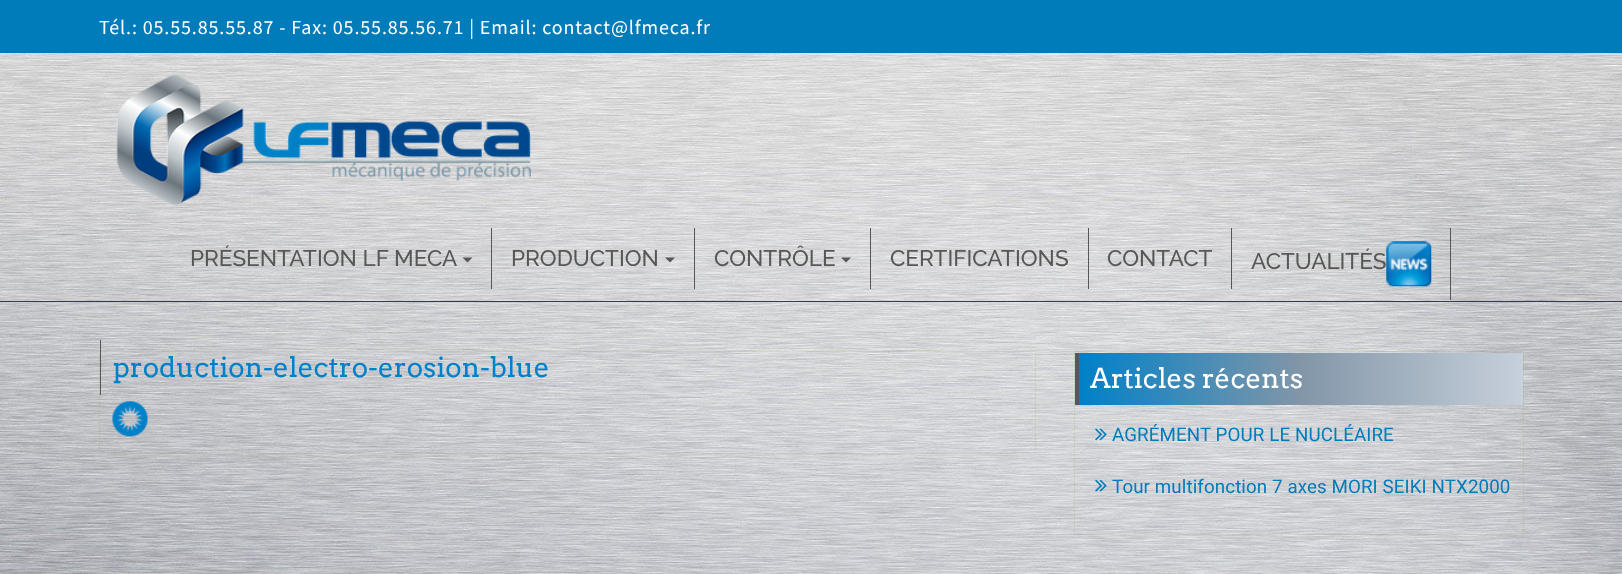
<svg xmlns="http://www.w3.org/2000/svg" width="1622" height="574">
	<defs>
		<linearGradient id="g1" gradientUnits="userSpaceOnUse" x1="1079" y1="379" x2="1523" y2="379"><stop offset="0" stop-color="#0080C8" /><stop offset="0.5" stop-color="#8296A8" /><stop offset="1" stop-color="#C7D0DB" /></linearGradient>
	</defs>
	<rect width="100%" height="100%" fill="#FFFFFF" />
	<image x="0" y="53" width="1622" height="521" href="assets/img1.png" />
	<rect x="0" y="0" width="1622" height="53" fill="#007CBA" />
	<text x="99" y="34" font-family="Source Sans Pro" font-size="20" letter-spacing="0.88" fill="#FFFFFF">Tél.: 05.55.85.55.87 - Fax: 05.55.85.56.71 | Email: contact@lfmeca.fr</text>
	<image x="116" y="74" width="415" height="132" href="assets/img2.png" />
	<rect x="0" y="301" width="1622" height="1" fill="#00488E" />
	<rect x="491" y="228" width="1" height="61" fill="#575756" />
	<text x="190" y="266" font-family="Raleway" font-size="22.5" font-weight="500" fill="#575756">PRÉSENTATION LF MECA</text>
	<path d="M462.5 257.5H472.5L467.5 262.5Z" fill="#575756" />
	<rect x="694" y="228" width="1" height="61" fill="#575756" />
	<text x="511" y="266" font-family="Raleway" font-size="22.5" font-weight="500" fill="#575756">PRODUCTION</text>
	<path d="M665 257.5H675L670 262.5Z" fill="#575756" />
	<rect x="870" y="228" width="1" height="61" fill="#575756" />
	<text x="714" y="266" font-family="Raleway" font-size="22.5" font-weight="500" fill="#575756">CONTRÔLE</text>
	<path d="M841 257.5H851L846 262.5Z" fill="#575756" />
	<rect x="1088" y="228" width="1" height="61" fill="#575756" />
	<text x="890" y="266" font-family="Raleway" font-size="22.5" font-weight="500" fill="#575756">CERTIFICATIONS</text>
	<rect x="1231" y="228" width="1" height="61" fill="#575756" />
	<text x="1107" y="266" font-family="Raleway" font-size="22.5" font-weight="500" fill="#575756">CONTACT</text>
	<rect x="1450" y="228" width="1" height="72" fill="#575756" />
	<text x="1251" y="269" font-family="Raleway" font-size="22.5" font-weight="500" fill="#575756">ACTUALITÉS</text>
	<image x="1386" y="241" width="46" height="46" href="assets/img3.png" />
	<rect x="99.5" y="351.5" width="936" height="102" fill="none" stroke="#68AC10" stroke-opacity="0.12" />
	<text x="113" y="377" font-family="Arvo" font-size="27.5" fill="#0080C8">production-electro-erosion-blue</text>
	<rect x="100" y="340" width="1" height="55" fill="#575756" />
	<image x="112" y="401" width="36" height="36" href="assets/img4.png" />
	<rect x="1074.5" y="351.5" width="449" height="183" fill="none" stroke="#68AC10" stroke-opacity="0.12" />
	<rect x="1079" y="353" width="444" height="52" fill="url(#g1)" />
	<rect x="1075" y="353" width="4" height="52" fill="#575756" />
	<text x="1090" y="388" font-family="Arvo" font-size="27.5" fill="#FFFFFF">Articles récents</text>
	<rect x="1100" y="460" width="423" height="1" fill="#EAEAEA" />
	<image x="1095" y="428" width="12" height="13" href="assets/img5.png" />
	<text x="1112" y="441" font-family="Roboto" font-size="18.75" letter-spacing="0.1" fill="#007CBA">AGRÉMENT POUR LE NUCLÉAIRE</text>
	<image x="1095" y="479" width="12" height="13" href="assets/img6.png" />
	<text x="1112" y="493" font-family="Roboto" font-size="18.75" letter-spacing="0.1" fill="#007CBA">Tour multifonction 7 axes MORI SEIKI NTX2000</text>
</svg>
